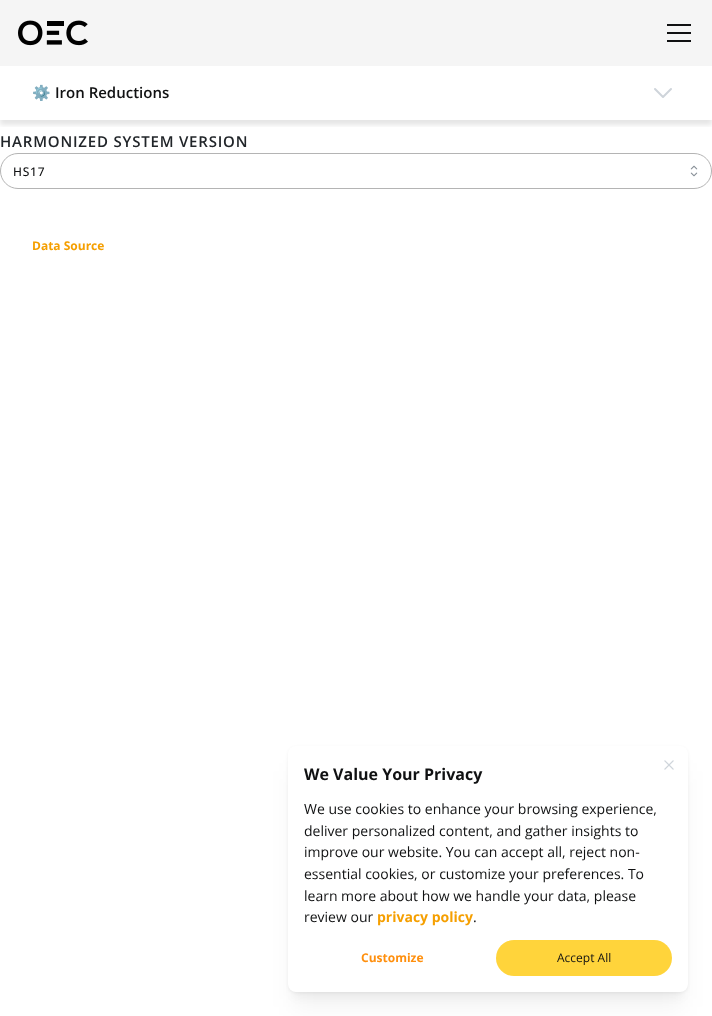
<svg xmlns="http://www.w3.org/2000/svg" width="712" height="1016">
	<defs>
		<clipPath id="clip1"><rect x="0" y="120" width="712" height="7" /></clipPath>
	</defs>
	<rect width="100%" height="100%" fill="#FFFFFF" />
	<rect x="0" y="0" width="712" height="66" fill="#F5F5F5" />
	<image x="18" y="20" width="70" height="26" href="assets/img1.png" />
	<rect x="667" y="32" width="24" height="2" fill="#101112" />
	<rect x="667" y="24" width="24" height="2" fill="#101112" />
	<rect x="667" y="40" width="24" height="2" fill="#101112" />
	<g clip-path="url(#clip1)">
		<rect x="0" y="81" width="712" height="44" fill="#000000" fill-opacity="0.1" filter="blur(2.5px)" />
	</g>
	<text x="32" y="98" font-family="Noto Color Emoji" font-size="15" font-weight="700" fill="#101112">⚙️</text>
	<text x="55" y="98" font-family="Open Sans" font-size="15" font-weight="600" fill="#101112">Iron Reductions</text>
	<path d="M655 89L663 97L671 89" fill="none" stroke="#CED4DA" stroke-width="2" stroke-linecap="round" stroke-linejoin="round" />
	<text x="0" y="147" font-family="Open Sans" font-size="15" font-weight="600" letter-spacing="0.8" fill="#212529">HARMONIZED SYSTEM VERSION</text>
	<rect x="0.5" y="153.5" width="711" height="35" rx="17.5" fill="none" stroke="#B4B4B4" />
	<text x="13" y="176" font-family="Open Sans" font-size="12" font-weight="500" letter-spacing="0.8" fill="#101112">HS17</text>
	<image x="690" y="165" width="8" height="12" href="assets/img2.png" />
	<text x="32" y="250" font-family="Open Sans" font-size="12" font-weight="700" fill="#F59F00">Data Source</text>
	<rect x="293" y="761" width="390" height="236" rx="3" fill="#000000" fill-opacity="0.04" filter="blur(5px)" />
	<rect x="293" y="771" width="390" height="236" rx="3" fill="#000000" fill-opacity="0.05" filter="blur(12.5px)" />
	<rect x="288" y="747" width="400" height="246" rx="8" fill="#000000" fill-opacity="0.05" filter="blur(1.5px)" />
	<rect x="288" y="746" width="400" height="246" rx="8" fill="#FFFFFF" />
	<image x="664" y="760" width="10" height="10" href="assets/img3.png" />
	<text x="304" y="780" font-family="Open Sans" font-size="16" font-weight="700" fill="#101112">We Value Your Privacy</text>
	<g font-family="Open Sans" font-size="14" fill="#101112">
		<text x="304" y="814">We use cookies to enhance your browsing experience,</text>
		<text x="304" y="836">deliver personalized content, and gather insights to</text>
		<text x="304" y="857">improve our website. You can accept all, reject non-</text>
		<text x="304" y="879">essential cookies, or customize your preferences. To</text>
		<text x="304" y="901">learn more about how we handle your data, please</text>
		<text x="304" y="922">review our</text>
	</g>
	<text x="377" y="922" font-family="Open Sans" font-size="14" font-weight="700" fill="#F59F00">privacy policy</text>
	<text x="473" y="922" font-family="Open Sans" font-size="14" fill="#101112">.</text>
	<text x="361" y="962" font-family="Open Sans" font-size="12" font-weight="700" fill="#FF8F0D">Customize</text>
	<rect x="496" y="940" width="176" height="36" rx="18" fill="#FFD43B" />
	<text x="557" y="962" font-family="Open Sans" font-size="12" fill="#101112">Accept All</text>
</svg>
